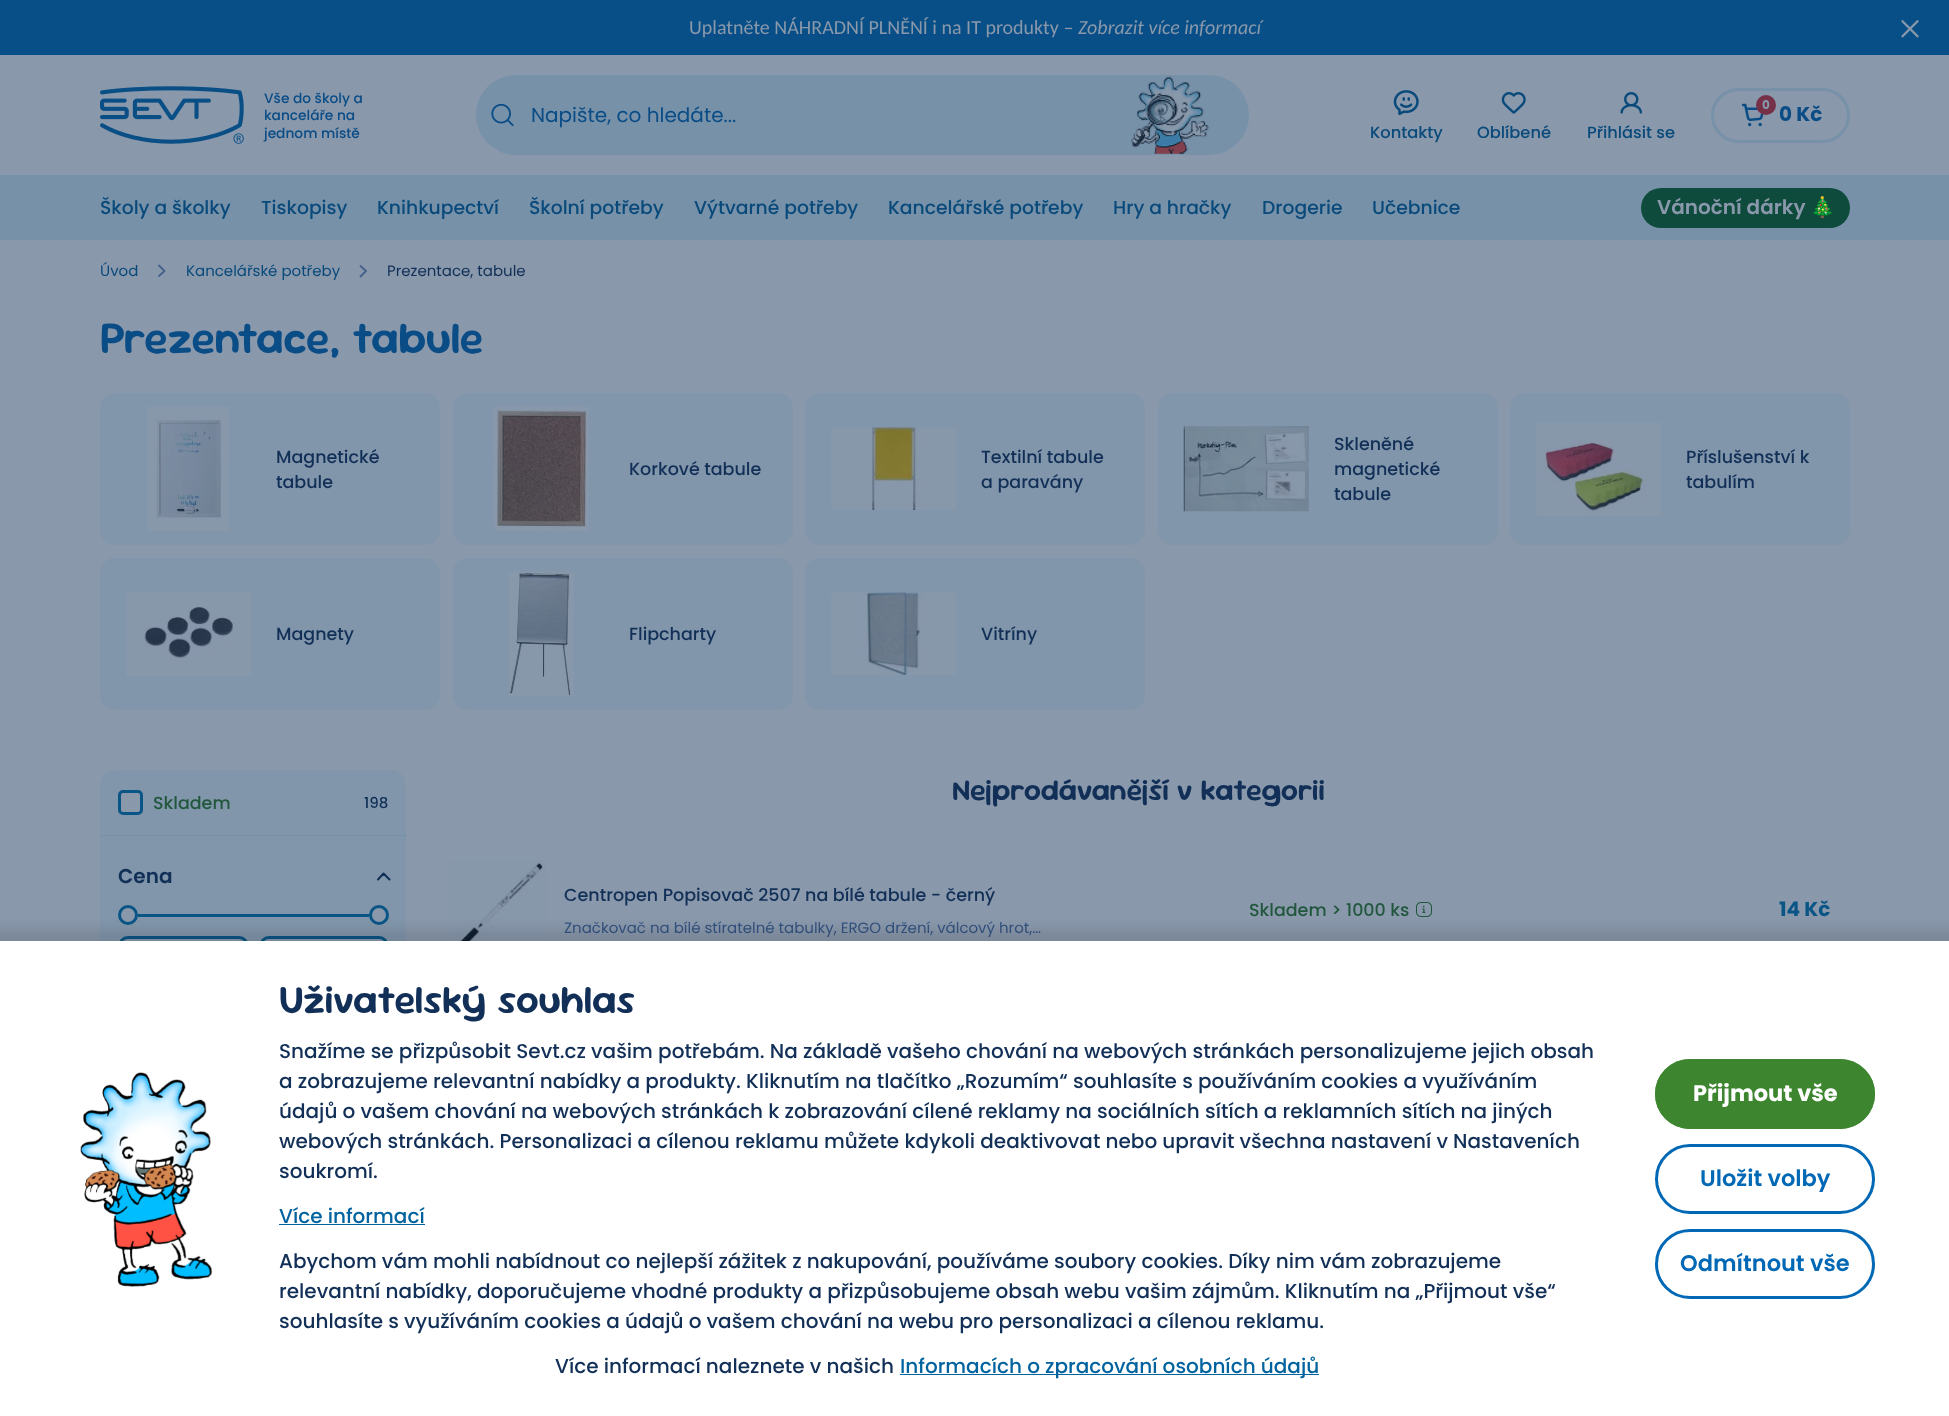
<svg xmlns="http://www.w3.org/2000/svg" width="1949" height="1416">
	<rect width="100%" height="100%" fill="#8998AB" />
	<rect x="0" y="0" width="1949" height="55" fill="#094F87" />
	<rect x="689" y="35" width="572" height="1" fill="#0C4A8C" />
	<text x="689" y="34" font-family="Carlito" font-size="20" fill="#8998AB">Uplatněte NÁHRADNÍ PLNĚNÍ i na IT produkty –</text>
	<text x="1078" y="34" font-family="Carlito" font-size="20" font-style="italic" fill="#8998AB">Zobrazit více informací</text>
	<image x="1901" y="20" width="18" height="18" href="assets/img1.png" />
	<image x="100" y="86" width="144" height="58" href="assets/img2.png" />
	<g font-family="Poppins" font-size="13.75" font-weight="500" fill="#094C86">
		<text x="264" y="103">Vše do školy a</text>
		<text x="264" y="120">kanceláře na</text>
		<text x="264" y="138">jednom místě</text>
	</g>
	<rect x="476" y="75" width="773" height="80" rx="40" fill="#7791A9" />
	<image x="491" y="104" width="23" height="22" href="assets/img3.png" />
	<text x="531" y="122" font-family="Poppins" font-size="20" fill="#094C86">Napište, co hledáte...</text>
	<image x="1131" y="76" width="78" height="78" href="assets/img4.png" />
	<rect x="1712.5" y="89.5" width="136" height="52" rx="26" fill="none" stroke="#7791A9" stroke-width="3" />
	<image x="1741" y="103" width="23" height="24" href="assets/img5.png" />
	<circle cx="1766" cy="105" r="10" fill="#753148" />
	<text x="1762" y="109" font-family="Poppins" font-size="12" font-weight="700" fill="#8998AB">0</text>
	<text x="1779" y="121" font-family="Poppins" font-size="20" font-weight="700" fill="#094C86">0 Kč</text>
	<image x="1393" y="90" width="26" height="26" href="assets/img6.png" />
	<text x="1370" y="138" font-family="Poppins" font-size="16.25" font-weight="500" fill="#094A7B">Kontakty</text>
	<image x="1501" y="92" width="25" height="22" href="assets/img7.png" />
	<text x="1477" y="138" font-family="Poppins" font-size="16.25" font-weight="500" fill="#094A7B">Oblíbené</text>
	<image x="1620" y="92" width="22" height="22" href="assets/img8.png" />
	<text x="1587" y="138" font-family="Poppins" font-size="16.25" font-weight="500" fill="#094A7B">Přihlásit se</text>
	<rect x="0" y="175" width="1949" height="65" fill="#7791A9" />
	<g font-family="Poppins" font-size="18.75" font-weight="500" fill="#094A7B">
		<text x="100" y="214">Školy a školky</text>
		<text x="261" y="214">Tiskopisy</text>
		<text x="377" y="214">Knihkupectví</text>
		<text x="529" y="214">Školní potřeby</text>
		<text x="694" y="214">Výtvarné potřeby</text>
		<text x="888" y="214">Kancelářské potřeby</text>
		<text x="1113" y="214">Hry a hračky</text>
		<text x="1262" y="214">Drogerie</text>
		<text x="1372" y="214">Učebnice</text>
	</g>
	<rect x="1641" y="188" width="209" height="40" rx="20" fill="#0F4B3D" />
	<text x="1657" y="214" font-family="Poppins" font-size="20" font-weight="600" fill="#8998AB">Vánoční dárky</text>
	<text x="1810" y="214" font-family="Noto Color Emoji" font-size="20" font-weight="700" fill="#8998AB">🎄</text>
	<text x="100" y="276" font-family="Poppins" font-size="15" fill="#094A7B">Úvod</text>
	<path d="M159 276L164.5 271L159 265.5" fill="none" stroke="#45618A" stroke-width="1.8" stroke-linecap="round" stroke-linejoin="round" />
	<text x="186" y="276" font-family="Poppins" font-size="15" fill="#094A7B">Kancelářské potřeby</text>
	<path d="M360.5 276.5L366 271L360.5 266" fill="none" stroke="#45618A" stroke-width="1.8" stroke-linecap="round" stroke-linejoin="round" />
	<text x="387" y="276" font-family="Poppins" font-size="15" fill="#123057">Prezentace, tabule</text>
	<text x="100" y="353" font-family="Sour Gummy" font-size="45" font-weight="600" fill="#094C86">Prezentace, tabule</text>
	<rect x="100" y="393" width="340" height="152" rx="15" fill="#8296AB" />
	<image x="147" y="406" width="83" height="125" href="assets/img9.png" />
	<g font-family="Poppins" font-size="17.5" font-weight="500" fill="#123057">
		<text x="276" y="463">Magnetické</text>
		<text x="276" y="488">tabule</text>
	</g>
	<rect x="453" y="393" width="340" height="152" rx="15" fill="#8296AB" />
	<image x="494" y="406" width="95" height="125" href="assets/img10.png" />
	<text x="629" y="475" font-family="Poppins" font-size="17.5" font-weight="500" fill="#123057">Korkové tabule</text>
	<rect x="805" y="393" width="340" height="152" rx="15" fill="#8296AB" />
	<image x="831" y="427" width="125" height="83" href="assets/img11.png" />
	<g font-family="Poppins" font-size="17.5" font-weight="500" fill="#123057">
		<text x="981" y="463">Textilní tabule</text>
		<text x="981" y="488">a paravány</text>
	</g>
	<rect x="1158" y="393" width="340" height="152" rx="15" fill="#8296AB" />
	<image x="1183" y="426" width="126" height="86" href="assets/img12.png" />
	<g font-family="Poppins" font-size="17.5" font-weight="500" fill="#123057">
		<text x="1334" y="450">Skleněné</text>
		<text x="1334" y="475">magnetické</text>
		<text x="1334" y="500">tabule</text>
	</g>
	<rect x="1510" y="393" width="340" height="152" rx="15" fill="#8296AB" />
	<image x="1536" y="422" width="125" height="94" href="assets/img13.png" />
	<g font-family="Poppins" font-size="17.5" font-weight="500" fill="#123057">
		<text x="1686" y="463">Příslušenství k</text>
		<text x="1686" y="488">tabulím</text>
	</g>
	<rect x="100" y="558" width="340" height="152" rx="15" fill="#8296AB" />
	<image x="126" y="591" width="125" height="85" href="assets/img14.png" />
	<text x="276" y="640" font-family="Poppins" font-size="17.5" font-weight="500" fill="#123057">Magnety</text>
	<rect x="453" y="558" width="340" height="152" rx="15" fill="#8296AB" />
	<image x="509" y="571" width="65" height="125" href="assets/img15.png" />
	<text x="629" y="640" font-family="Poppins" font-size="17.5" font-weight="500" fill="#123057">Flipcharty</text>
	<rect x="805" y="558" width="340" height="152" rx="15" fill="#8296AB" />
	<image x="831" y="592" width="125" height="83" href="assets/img16.png" />
	<text x="981" y="640" font-family="Poppins" font-size="17.5" font-weight="500" fill="#123057">Vitríny</text>
	<rect x="100" y="770" width="306" height="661" rx="15" fill="#8296AB" />
	<rect x="100" y="835" width="306" height="1" fill="#7791A9" />
	<rect x="119.5" y="791.5" width="22" height="22" rx="3.5" fill="#8998AB" stroke="#095586" stroke-width="3" />
	<text x="153" y="809" font-family="Poppins" font-size="17.5" font-weight="500" fill="#21573D">Skladem</text>
	<text x="364" y="808" font-family="Poppins" font-size="15" font-weight="500" fill="#123057">198</text>
	<text x="118" y="883" font-family="Poppins" font-size="20" font-weight="600" fill="#123057">Cena</text>
	<path d="M389.5 879.5L383.5 873.5L378 879.5" fill="none" stroke="#123057" stroke-width="2" stroke-linecap="round" stroke-linejoin="round" />
	<circle cx="128" cy="915" r="8.5" fill="#8998AB" stroke="#095586" stroke-width="3" />
	<rect x="138" y="914" width="231" height="3" fill="#095586" />
	<circle cx="379" cy="915" r="8.5" fill="#8998AB" stroke="#095586" stroke-width="3" />
	<rect x="119.5" y="937.5" width="128" height="67" rx="8.5" fill="#8998AB" stroke="#095586" stroke-width="3" />
	<rect x="260.5" y="937.5" width="127" height="67" rx="8.5" fill="#8998AB" stroke="#095586" stroke-width="3" />
	<text x="952" y="800" font-family="Sour Gummy" font-size="30" font-weight="600" fill="#123057">Nejprodávanější v kategorii</text>
	<image x="449" y="860" width="97" height="81" href="assets/img17.png" />
	<text x="564" y="901" font-family="Poppins" font-size="17.5" font-weight="500" fill="#123057">Centropen Popisovač 2507 na bílé tabule - černý</text>
	<text x="564" y="933" font-family="Poppins" font-size="15" fill="#345381">Značkovač na bílé stíratelné tabulky, ERGO držení, válcový hrot,…</text>
	<text x="1249" y="916" font-family="Poppins" font-size="17.5" font-weight="500" fill="#21573D">Skladem &gt; 1000 ks</text>
	<image x="1416" y="902" width="16" height="15" href="assets/img18.png" />
	<text x="1779" y="916" font-family="Poppins" font-size="20" font-weight="700" fill="#095586">14 Kč</text>
	<rect x="-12" y="929" width="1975" height="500" fill="#000000" fill-opacity="0.1" filter="blur(6px)" />
	<rect x="0" y="941" width="1949" height="475" fill="#FFFFFF" />
	<image x="80" y="1072" width="132" height="215" href="assets/img19.png" />
	<text x="279" y="1013" font-family="Sour Gummy" font-size="40" font-weight="600" fill="#123057">Uživatelský souhlas</text>
	<g font-family="Poppins" font-size="20" font-weight="500" fill="#123057">
		<text x="279" y="1058">Snažíme se přizpůsobit Sevt.cz vašim potřebám. Na základě vašeho chování na webových stránkách personalizujeme jejich obsah</text>
		<text x="279" y="1088">a zobrazujeme relevantní nabídky a produkty. Kliknutím na tlačítko „Rozumím“ souhlasíte s používáním cookies a využíváním</text>
		<text x="279" y="1118">údajů o vašem chování na webových stránkách k zobrazování cílené reklamy na sociálních sítích a reklamních sítích na jiných</text>
		<text x="279" y="1148">webových stránkách. Personalizaci a cílenou reklamu můžete kdykoli deaktivovat nebo upravit všechna nastavení v Nastaveních</text>
		<text x="279" y="1178">soukromí.</text>
	</g>
	<text x="279" y="1223" font-family="Poppins" font-size="20" font-weight="500" fill="#00639F">Více informací</text>
	<rect x="279" y="1224" width="146" height="1" fill="#00639F" />
	<g font-family="Poppins" font-size="20" font-weight="500" fill="#123057">
		<text x="279" y="1268">Abychom vám mohli nabídnout co nejlepší zážitek z nakupování, používáme soubory cookies. Díky nim vám zobrazujeme</text>
		<text x="279" y="1298">relevantní nabídky, doporučujeme vhodné produkty a přizpůsobujeme obsah webu vašim zájmům. Kliknutím na „Přijmout vše“</text>
		<text x="279" y="1328">souhlasíte s využíváním cookies a údajů o vašem chování na webu pro personalizaci a cílenou reklamu.</text>
		<text x="555" y="1373">Více informací naleznete v našich</text>
	</g>
	<rect x="900" y="1374" width="419" height="1" fill="#00639F" />
	<text x="900" y="1373" font-family="Poppins" font-size="20" font-weight="500" fill="#00639F">Informacích o zpracování osobních údajů</text>
	<rect x="1655" y="1059" width="220" height="70" rx="35" fill="#3D862F" />
	<rect x="1656.5" y="1060.5" width="217" height="67" rx="33.5" fill="none" stroke="#3D862F" stroke-width="3" />
	<text x="1693" y="1101" font-family="Poppins" font-size="22.5" font-weight="700" fill="#FFFFFF">Přijmout vše</text>
	<rect x="1656.5" y="1145.5" width="217" height="67" rx="33.5" fill="none" stroke="#0068B4" stroke-width="3" />
	<text x="1700" y="1186" font-family="Poppins" font-size="22.5" font-weight="600" fill="#0068B4">Uložit volby</text>
	<rect x="1656.5" y="1230.5" width="217" height="67" rx="33.5" fill="none" stroke="#0068B4" stroke-width="3" />
	<text x="1680" y="1271" font-family="Poppins" font-size="22.5" font-weight="600" fill="#0068B4">Odmítnout vše</text>
</svg>
